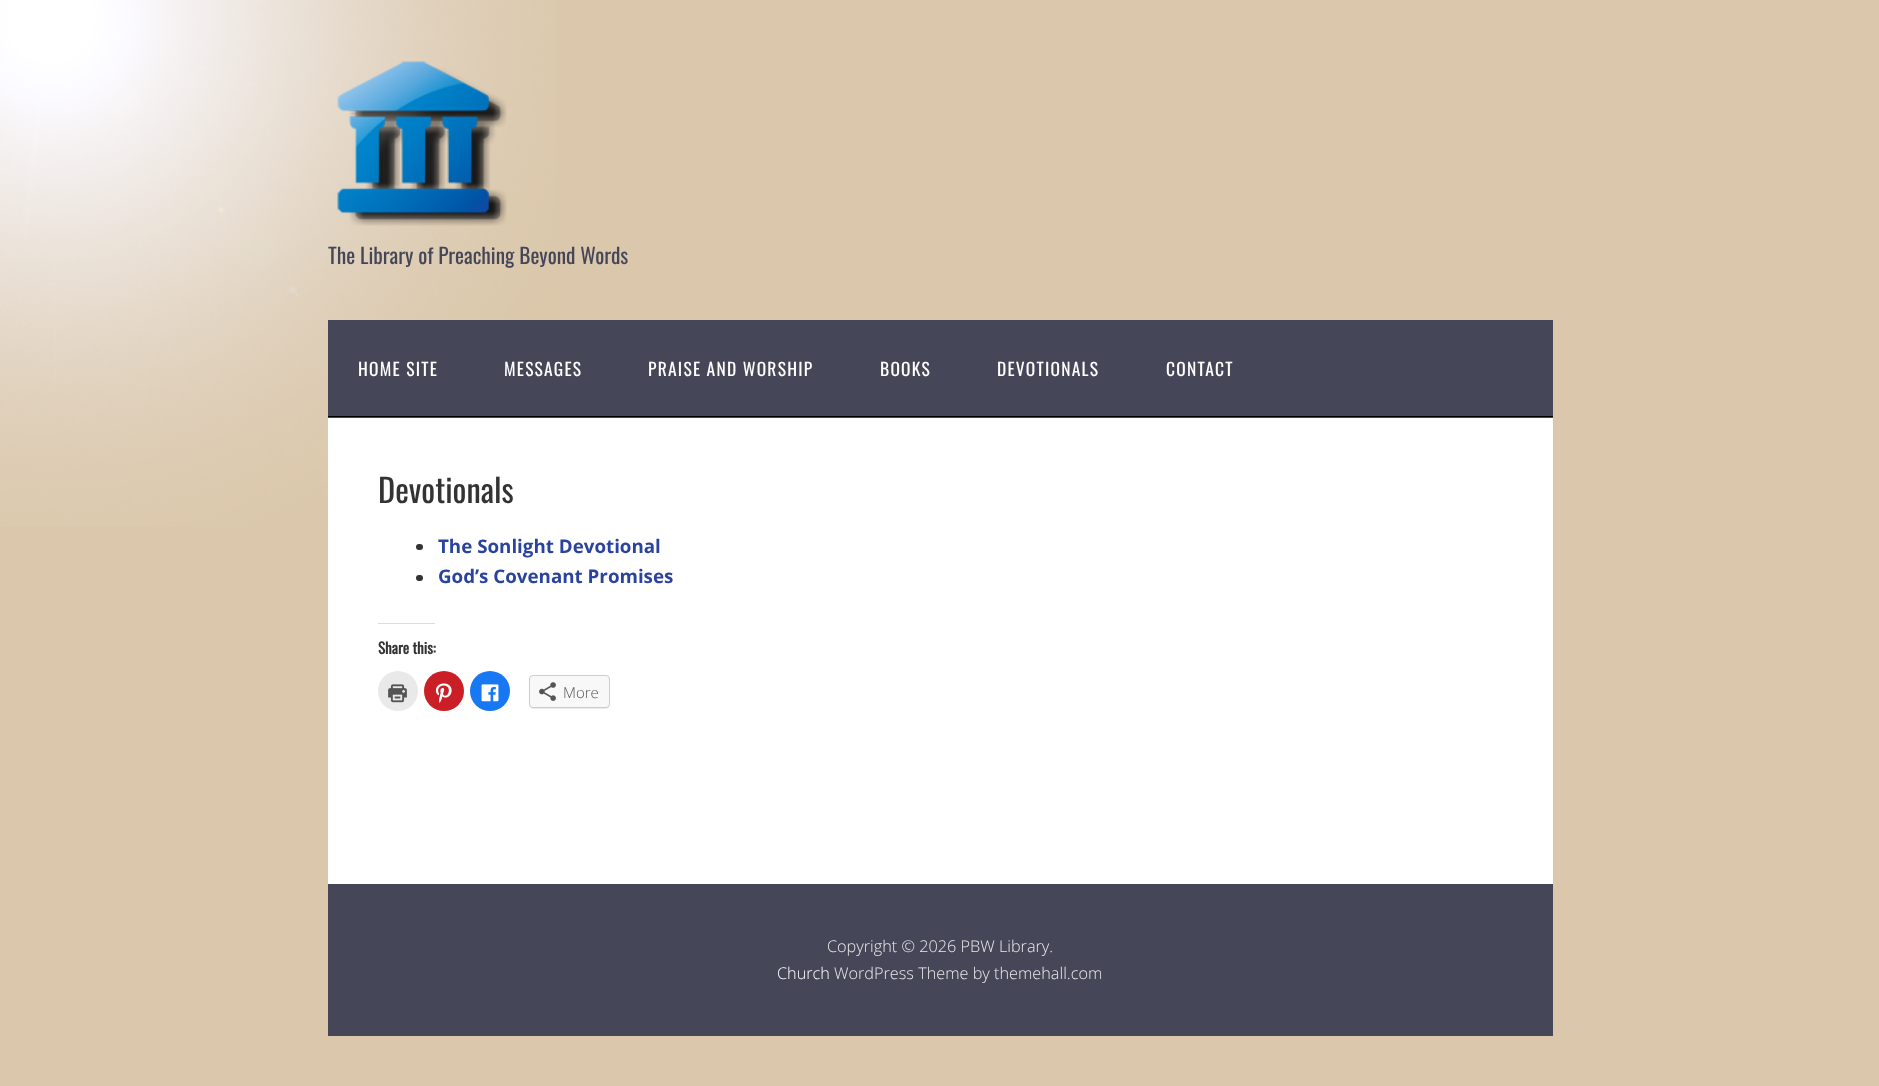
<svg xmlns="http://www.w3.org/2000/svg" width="1879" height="1086">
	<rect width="100%" height="100%" fill="#DBC7AB" />
	<image x="0" y="0" width="556" height="527" href="assets/img1.png" />
	<image x="337" y="61" width="170" height="165" href="assets/img2.png" />
	<text x="328" y="264" font-family="Oswald" font-size="21.25" fill="#464659">The Library of Preaching Beyond Words</text>
	<rect x="328" y="320" width="1225" height="98" fill="#464659" />
	<rect x="328" y="416" width="1225" height="1" fill="#000000" />
	<g font-family="Oswald" font-size="17.5" letter-spacing="1.25" fill="#FFFFFF">
		<text x="358" y="376">HOME SITE</text>
		<text x="504" y="376">MESSAGES</text>
		<text x="648" y="376">PRAISE AND WORSHIP</text>
		<text x="880" y="376">BOOKS</text>
		<text x="997" y="376">DEVOTIONALS</text>
		<text x="1166" y="376">CONTACT</text>
	</g>
	<rect x="328" y="418" width="1225" height="466" fill="#FFFFFF" />
	<text x="378" y="503" font-family="Oswald" font-size="32.5" fill="#333333">Devotionals</text>
	<rect x="416" y="544" width="7" height="6" rx="3" fill="#333333" />
	<text x="438" y="553" font-family="Open Sans" font-size="18.75" font-weight="700" fill="#2A439E">The Sonlight Devotional</text>
	<rect x="416" y="575" width="7" height="6" rx="3" fill="#333333" />
	<text x="438" y="583" font-family="Open Sans" font-size="18.75" font-weight="700" fill="#2A439E">God’s Covenant Promises</text>
	<rect x="378" y="623" width="57" height="1" fill="#DDDDDD" />
	<text x="378" y="654" font-family="Oswald" font-size="15" font-weight="700" fill="#333333">Share this:</text>
	<circle cx="398" cy="691" r="20" fill="#E9E9E9" />
	<image x="388" y="684" width="19" height="19" href="assets/img3.png" />
	<circle cx="444" cy="691" r="20" fill="#CA1F27" />
	<image x="435" y="683" width="17" height="20" href="assets/img4.png" />
	<circle cx="490" cy="691" r="20" fill="#1877F2" />
	<image x="481" y="684" width="18" height="18" href="assets/img5.png" />
	<path d="M529 705C529 707 531 709 533 709H606C608 709 610 707 610 705V704C610 706 608 708 606 708H532C531 708 530 707 529 705Z" fill="#EBEBEB" />
	<rect x="529.5" y="675.5" width="80" height="32" rx="3.5" fill="#F8F8F8" stroke="#CCCCCC" />
	<image x="539" y="682" width="17" height="19" href="assets/img6.png" />
	<text x="563" y="698" font-family="Open Sans" font-size="15" font-weight="300" fill="#545454">More</text>
	<rect x="328" y="884" width="1225" height="152" fill="#464659" />
	<text x="827" y="952" font-family="Open Sans" font-size="16.25" font-weight="300" fill="#EAEAEA">Copyright © 2026 PBW Library.</text>
	<text x="777" y="979" font-family="Open Sans" font-size="16.25" font-weight="300" fill="#FFFFFF">Church</text>
	<text x="834" y="979" font-family="Open Sans" font-size="16.25" font-weight="300" fill="#EAEAEA">WordPress Theme by themehall.com</text>
</svg>
